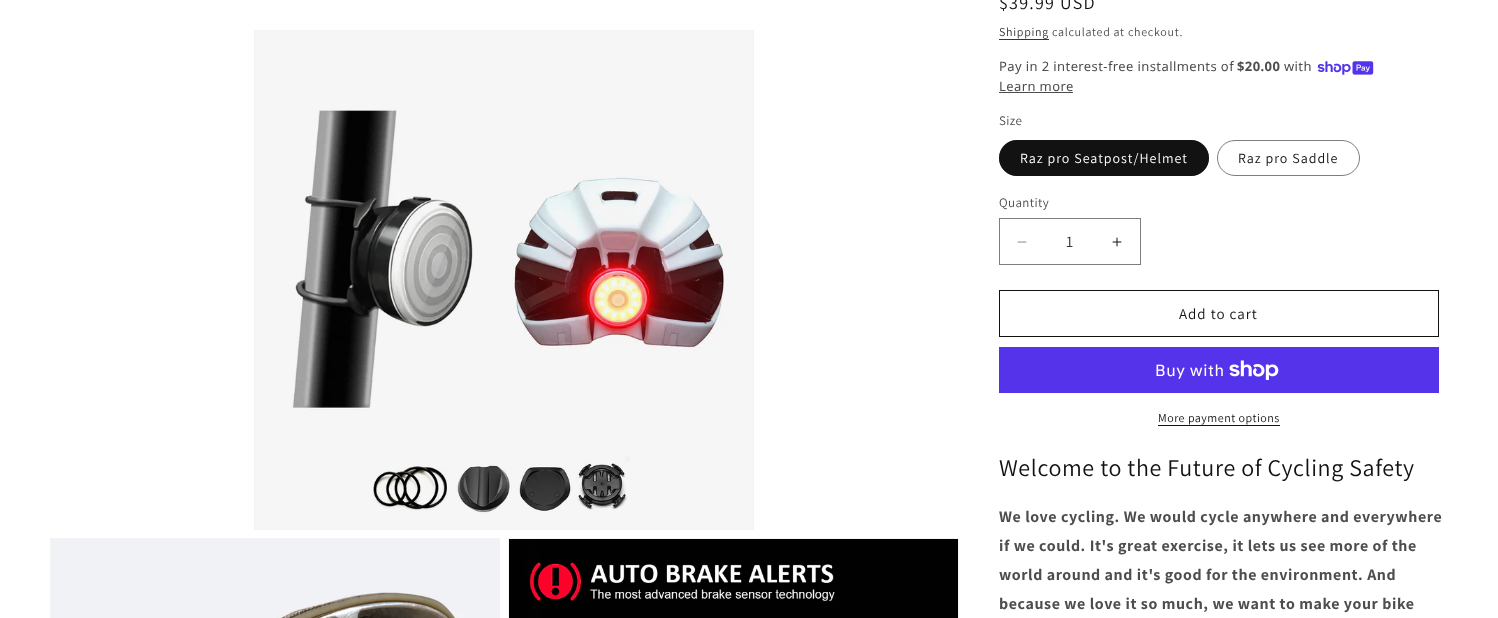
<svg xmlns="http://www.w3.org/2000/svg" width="1498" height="618">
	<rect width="100%" height="100%" fill="#FFFFFF" />
	<rect x="254.5" y="30.5" width="499" height="499" fill="none" stroke="#F3F3F3" />
	<image x="255" y="31" width="498" height="498" href="assets/img1.png" />
	<rect x="50.5" y="538.5" width="449" height="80" fill="none" stroke="#F3F3F3" />
	<image x="51" y="539" width="448" height="79" href="assets/img2.png" />
	<rect x="508.5" y="538.5" width="450" height="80" fill="none" stroke="#F3F3F3" />
	<image x="509" y="539" width="449" height="79" href="assets/img3.png" />
	<text x="999" y="9" font-family="Assistant" font-size="18" letter-spacing="1.25" fill="#121212">$39.99 USD</text>
	<text x="999" y="36" font-family="Assistant" font-size="12" letter-spacing="0.7" fill="#363636">Shipping</text>
	<rect x="999" y="39" width="50" height="1" fill="#363636" />
	<text x="1052" y="36" font-family="Assistant" font-size="12" letter-spacing="0.7" fill="#4D4D4D">calculated at checkout.</text>
	<text x="999" y="71" font-family="Noto Sans" font-size="13" letter-spacing="0.4" fill="#4D4D4D">Pay in 2 interest-free installments of</text>
	<text x="1237" y="71" font-family="Noto Sans" font-size="13" font-weight="700" letter-spacing="0.4" fill="#4D4D4D">$20.00</text>
	<text x="1284" y="71" font-family="Noto Sans" font-size="13" letter-spacing="0.4" fill="#4D4D4D">with</text>
	<image x="1317" y="61" width="57" height="14" href="assets/img4.png" />
	<text x="999" y="91" font-family="Noto Sans" font-size="13" letter-spacing="0.4" fill="#4D4D4D">Learn more</text>
	<rect x="999" y="92" width="74" height="1" fill="#4D4D4D" />
	<text x="999" y="125" font-family="Assistant" font-size="13" letter-spacing="0.4" fill="#4D4D4D">Size</text>
	<rect x="999" y="140" width="210" height="36" rx="18" fill="#121212" />
	<rect x="999.5" y="140.5" width="209" height="35" rx="17.5" fill="none" stroke="#121212" stroke-opacity="0.55" />
	<text x="1020" y="163" font-family="Assistant" font-size="14" letter-spacing="1" fill="#FFFFFF">Raz pro Seatpost/Helmet</text>
	<rect x="1217.5" y="140.5" width="142" height="35" rx="17.5" fill="none" stroke="#7D7D7D" />
	<text x="1238" y="163" font-family="Assistant" font-size="14" letter-spacing="1" fill="#121212">Raz pro Saddle</text>
	<text x="999" y="207" font-family="Assistant" font-size="13" letter-spacing="0.4" fill="#4D4D4D">Quantity</text>
	<image x="1017" y="241" width="10" height="2" href="assets/img5.png" />
	<image x="1112" y="237" width="10" height="10" href="assets/img6.png" />
	<rect x="999.5" y="218.5" width="141" height="46" fill="none" stroke="#7D7D7D" />
	<text x="1066" y="247" font-family="Assistant" font-size="16" fill="#363636">1</text>
	<rect x="999.5" y="290.5" width="439" height="46" fill="none" stroke="#121212" />
	<text x="1179" y="319" font-family="Assistant" font-size="15" letter-spacing="1" fill="#121212">Add to cart</text>
	<rect x="999" y="347" width="440" height="46" fill="#5433EB" />
	<text x="1155" y="376" font-family="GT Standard" font-size="16" letter-spacing="0.6" fill="#FFFFFF">Buy with</text>
	<image x="1229" y="360" width="50" height="20" href="assets/img7.png" />
	<text x="1158" y="422" font-family="Assistant" font-size="12" letter-spacing="0.5" fill="#121212">More payment options</text>
	<rect x="1158" y="425" width="122" height="1" fill="#121212" />
	<text x="999" y="476" font-family="Assistant" font-size="24" letter-spacing="0.6" fill="#121212">Welcome to the Future of Cycling Safety</text>
	<g font-family="Assistant" font-size="16" font-weight="700" letter-spacing="0.6" fill="#4D4D4D">
		<text x="999" y="522">We love cycling. We would cycle anywhere and everywhere</text>
		<text x="999" y="551">if we could. It's great exercise, it lets us see more of the</text>
		<text x="999" y="580">world around and it's good for the environment. And</text>
		<text x="999" y="609">because we love it so much, we want to make your bike</text>
	</g>
</svg>
